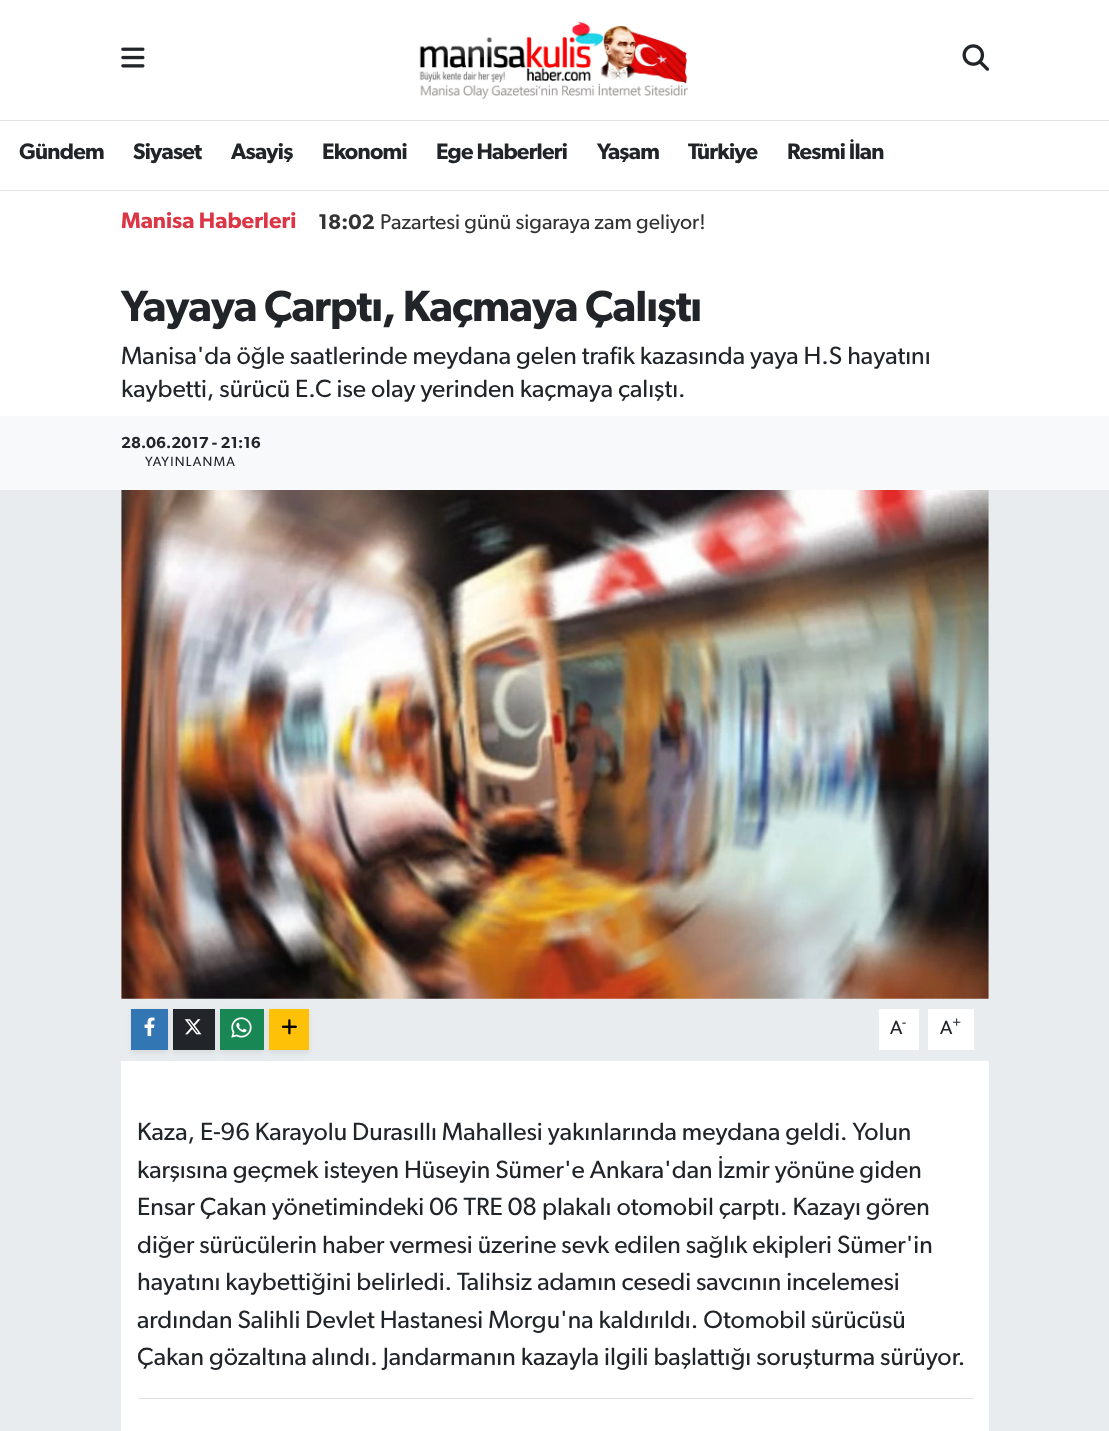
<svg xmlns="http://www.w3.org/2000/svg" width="1109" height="1431">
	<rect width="100%" height="100%" fill="#E9ECEF" />
	<rect x="0" y="0" width="1109" height="120" fill="#FFFFFF" />
	<rect x="0" y="120" width="1109" height="1" fill="#DEE2E6" />
	<image x="121" y="47" width="24" height="21" href="assets/img1.png" />
	<image x="419" y="21" width="269" height="78" href="assets/img2.png" />
	<image x="962" y="44" width="27" height="27" href="assets/img3.png" />
	<rect x="0" y="121" width="1109" height="69" fill="#FFFFFF" />
	<rect x="0" y="190" width="1109" height="1" fill="#E6E6E6" />
	<g font-family="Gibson" font-size="22.5" font-weight="600" letter-spacing="-0.75" fill="#212529">
		<text x="19" y="159">Gündem</text>
		<text x="133" y="159">Siyaset</text>
		<text x="231" y="159">Asayiş</text>
		<text x="322" y="159">Ekonomi</text>
		<text x="436" y="159">Ege Haberleri</text>
		<text x="597" y="159">Yaşam</text>
		<text x="688" y="159">Türkiye</text>
		<text x="787" y="159">Resmi İlan</text>
	</g>
	<rect x="0" y="191" width="1109" height="225" fill="#FFFFFF" />
	<text x="121" y="228" font-family="Gibson" font-size="22.5" font-weight="600" fill="#DC3545">Manisa Haberleri</text>
	<text x="318" y="229" font-family="Gibson" font-size="21.25" font-weight="600" fill="#333333">18:02</text>
	<text x="380" y="229" font-family="Gibson" font-size="21.25" fill="#333333">Pazartesi günü sigaraya zam geliyor!</text>
	<text x="121" y="321" font-family="Gibson" font-size="43.75" font-weight="600" letter-spacing="-1" fill="#212529">Yayaya Çarptı, Kaçmaya Çalıştı</text>
	<g font-family="Gibson" font-size="25" fill="#212529">
		<text x="121" y="364">Manisa'da öğle saatlerinde meydana gelen trafik kazasında yaya H.S hayatını</text>
		<text x="121" y="397">kaybetti, sürücü E.C ise olay yerinden kaçmaya çalıştı.</text>
	</g>
	<rect x="0" y="416" width="1109" height="74" fill="#F8F9FA" />
	<text x="121" y="448" font-family="Gibson" font-size="16" font-weight="600" fill="#212529">28.06.2017 - 21:16</text>
	<text x="145" y="466" font-family="Gibson" font-size="13.25" letter-spacing="1.25" fill="#212529">YAYINLANMA</text>
	<image x="121" y="490" width="868" height="509" href="assets/img4.png" />
	<rect x="131" y="1011" width="37" height="42" fill="#000000" fill-opacity="0.07" filter="blur(2.5px)" />
	<rect x="131" y="1009" width="37" height="41" fill="#3276B3" />
	<image x="144" y="1017" width="11" height="20" href="assets/img5.png" />
	<rect x="173" y="1011" width="42" height="42" fill="#000000" fill-opacity="0.07" filter="blur(2.5px)" />
	<rect x="173" y="1009" width="42" height="41" fill="#212529" />
	<image x="184" y="1019" width="18" height="16" href="assets/img6.png" />
	<rect x="220" y="1011" width="44" height="42" fill="#000000" fill-opacity="0.07" filter="blur(2.5px)" />
	<rect x="220" y="1009" width="44" height="41" fill="#198754" />
	<image x="231" y="1017" width="21" height="21" href="assets/img7.png" />
	<rect x="269" y="1011" width="40" height="42" fill="#000000" fill-opacity="0.07" filter="blur(2.5px)" />
	<rect x="269" y="1009" width="40" height="41" fill="#FFC107" />
	<image x="281" y="1019" width="16" height="16" href="assets/img8.png" />
	<rect x="879" y="1009" width="40" height="41" fill="#FFFFFF" />
	<text x="890" y="1034" font-family="Gibson" font-size="19" fill="#212529">A</text>
	<text x="902" y="1027" font-family="Gibson" font-size="14" fill="#212529">-</text>
	<rect x="928" y="1009" width="46" height="41" fill="#FFFFFF" />
	<text x="940" y="1034" font-family="Gibson" font-size="19" fill="#212529">A</text>
	<text x="952" y="1027" font-family="Gibson" font-size="14" fill="#212529">+</text>
	<rect x="121" y="1061" width="868" height="370" fill="#FFFFFF" />
	<g font-family="Gibson" font-size="25" fill="#212529">
		<text x="137" y="1140">Kaza, E-96 Karayolu Durasıllı Mahallesi yakınlarında meydana geldi. Yolun</text>
		<text x="137" y="1178">karşısına geçmek isteyen Hüseyin Sümer'e Ankara'dan İzmir yönüne giden</text>
		<text x="137" y="1215">Ensar Çakan yönetimindeki 06 TRE 08 plakalı otomobil çarptı. Kazayı gören</text>
		<text x="137" y="1253">diğer sürücülerin haber vermesi üzerine sevk edilen sağlık ekipleri Sümer'in</text>
		<text x="137" y="1290">hayatını kaybettiğini belirledi. Talihsiz adamın cesedi savcının incelemesi</text>
		<text x="137" y="1328">ardından Salihli Devlet Hastanesi Morgu'na kaldırıldı. Otomobil sürücüsü</text>
		<text x="137" y="1365">Çakan gözaltına alındı. Jandarmanın kazayla ilgili başlattığı soruşturma sürüyor.</text>
	</g>
	<rect x="138" y="1398" width="836" height="1" fill="#DEE2E6" />
</svg>
